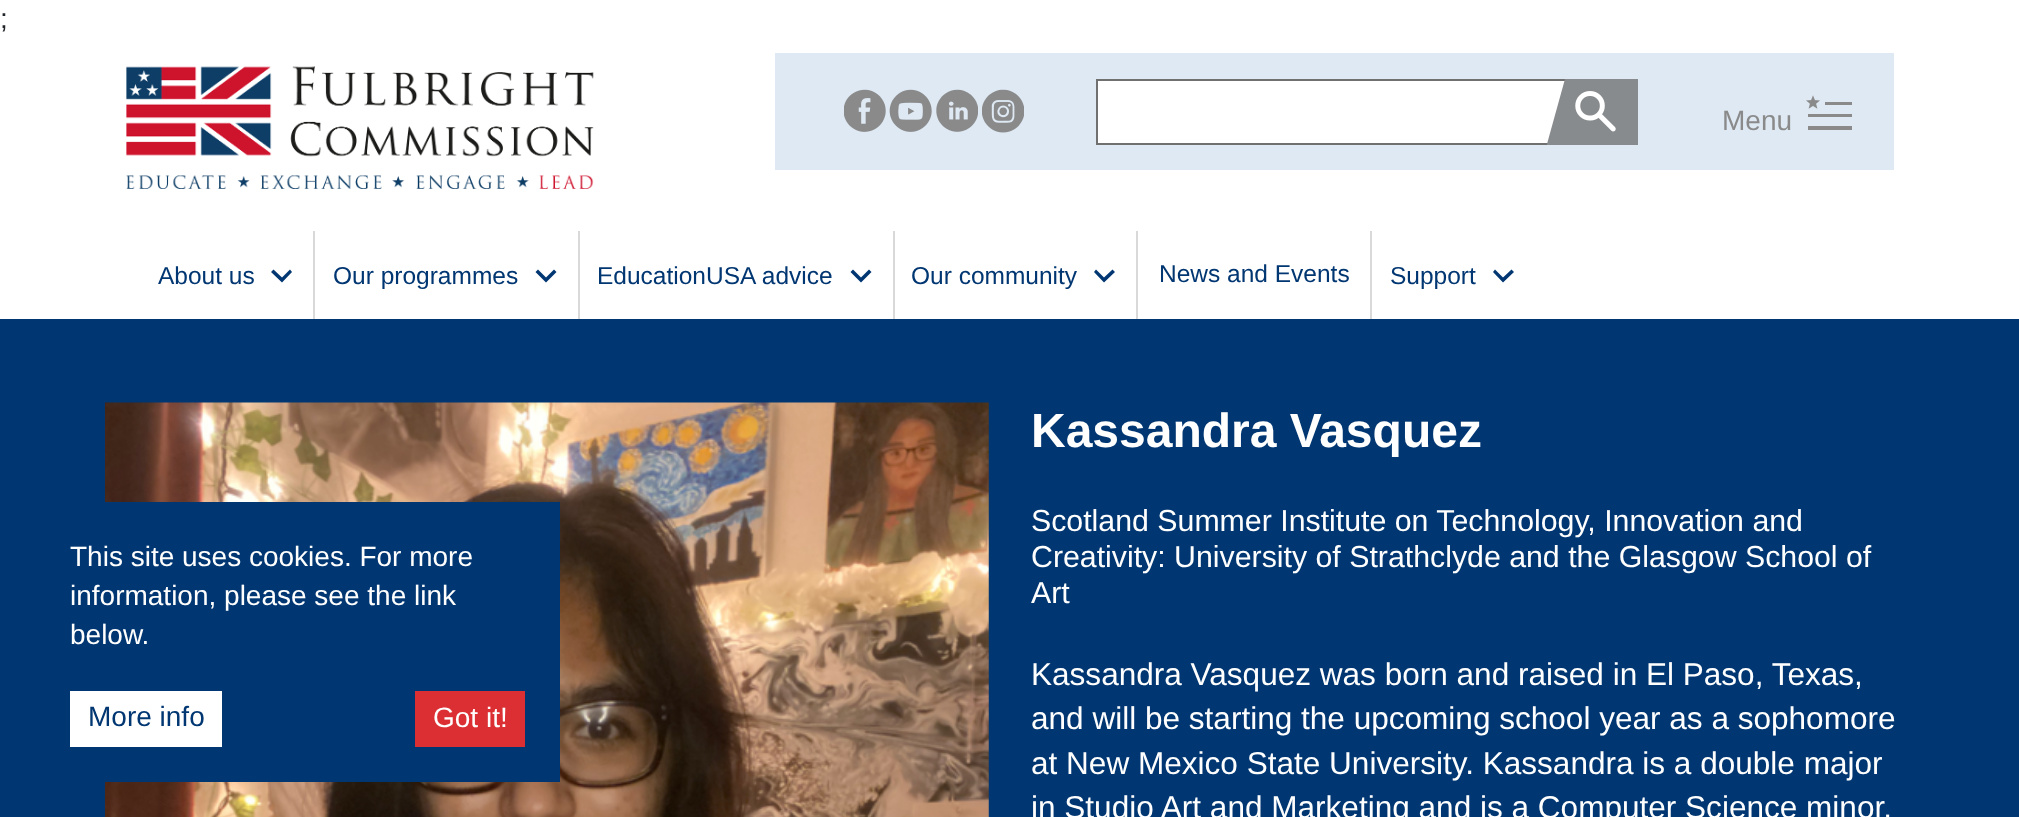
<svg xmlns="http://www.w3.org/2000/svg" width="2019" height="817">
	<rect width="100%" height="100%" fill="#FFFFFF" />
	<text x="0" y="28" font-family="Liberation Sans" font-size="28" fill="#212529">;</text>
	<image x="126" y="66" width="468" height="123" href="assets/img1.png" />
	<rect x="775" y="53" width="1119" height="117" fill="#DEE9F4" />
	<image x="844" y="89" width="42" height="43" href="assets/img2.png" />
	<image x="889" y="89" width="43" height="43" href="assets/img3.png" />
	<image x="936" y="89" width="42" height="43" href="assets/img4.png" />
	<image x="982" y="89" width="42" height="44" href="assets/img5.png" />
	<rect x="1098" y="81" width="467" height="62" fill="#FFFFFF" />
	<rect x="1097" y="80" width="540" height="64" fill="none" stroke="#707071" stroke-width="2" />
	<path d="M1547 144L1565 79H1638V145H1547Z" fill="#888B8D" />
	<image x="1575" y="91" width="41" height="41" href="assets/img6.png" />
	<text x="1722" y="130" font-family="Liberation Sans" font-size="28" fill="#8A8A8A">Menu</text>
	<image x="1806" y="95" width="46" height="35" href="assets/img7.png" />
	<rect x="313" y="231" width="2" height="88" fill="#D9D9D9" />
	<text x="158" y="284" font-family="Liberation Sans" font-size="24.5" fill="#003671">About us</text>
	<path d="M282 282.5L271 272L273.5 269.5L282 277.5L290 269.5L292 272Z" fill="#003671" />
	<rect x="578" y="231" width="2" height="88" fill="#D9D9D9" />
	<text x="333" y="284" font-family="Liberation Sans" font-size="24.5" fill="#003671">Our programmes</text>
	<path d="M546 282.5L535.5 272L538 269.5L546 277.5L554 269.5L556.5 272Z" fill="#003671" />
	<rect x="893" y="231" width="2" height="88" fill="#D9D9D9" />
	<text x="597" y="284" font-family="Liberation Sans" font-size="24.5" fill="#003671">EducationUSA advice</text>
	<path d="M861 282.5L850.5 272L853 269.5L861 277.5L869 269.5L871.5 272Z" fill="#003671" />
	<rect x="1136" y="231" width="2" height="88" fill="#D9D9D9" />
	<text x="911" y="284" font-family="Liberation Sans" font-size="24.5" fill="#003671">Our community</text>
	<path d="M1104 282.5L1094 272L1096 269.5L1104 277.5L1112.5 269.5L1115 272Z" fill="#003671" />
	<rect x="1370" y="231" width="2" height="88" fill="#D9D9D9" />
	<g font-family="Liberation Sans" font-size="24.5" fill="#003671">
		<text x="1159" y="282">News and Events</text>
		<text x="1390" y="284">Support</text>
	</g>
	<path d="M1503 282.5L1493 272L1495 269.5L1503 277.5L1511.5 269.5L1514 272Z" fill="#003671" />
	<rect x="0" y="319" width="2019" height="498" fill="#003671" />
	<image x="105" y="402" width="884" height="415" href="assets/img8.png" />
	<rect x="105" y="502" width="455" height="280" fill="#003671" />
	<g font-family="Liberation Sans" font-size="28" fill="#FFFFFF">
		<text x="70" y="566">This site uses cookies. For more</text>
		<text x="70" y="605">information, please see the link</text>
		<text x="70" y="644">below.</text>
	</g>
	<rect x="70" y="691" width="152" height="56" fill="#FFFFFF" />
	<text x="88" y="726" font-family="Liberation Sans" font-size="28" fill="#003671">More info</text>
	<rect x="415" y="691" width="110" height="56" fill="#DC2F34" />
	<text x="433" y="727" font-family="Liberation Sans" font-size="28" fill="#FFFFFF">Got it!</text>
	<text x="1031" y="447" font-family="Liberation Sans" font-size="48" font-weight="700" fill="#FFFFFF">Kassandra Vasquez</text>
	<g font-family="Liberation Sans" font-size="30.3" fill="#FFFFFF">
		<text x="1031" y="531">Scotland Summer Institute on Technology, Innovation and</text>
		<text x="1031" y="567">Creativity: University of Strathclyde and the Glasgow School of</text>
		<text x="1031" y="603">Art</text>
	</g>
	<g font-family="Liberation Sans" font-size="31.55" fill="#FFFFFF">
		<text x="1031" y="685">Kassandra Vasquez was born and raised in El Paso, Texas,</text>
		<text x="1031" y="729">and will be starting the upcoming school year as a sophomore</text>
		<text x="1031" y="774">at New Mexico State University. Kassandra is a double major</text>
		<text x="1031" y="818">in Studio Art and Marketing and is a Computer Science minor.</text>
	</g>
</svg>
